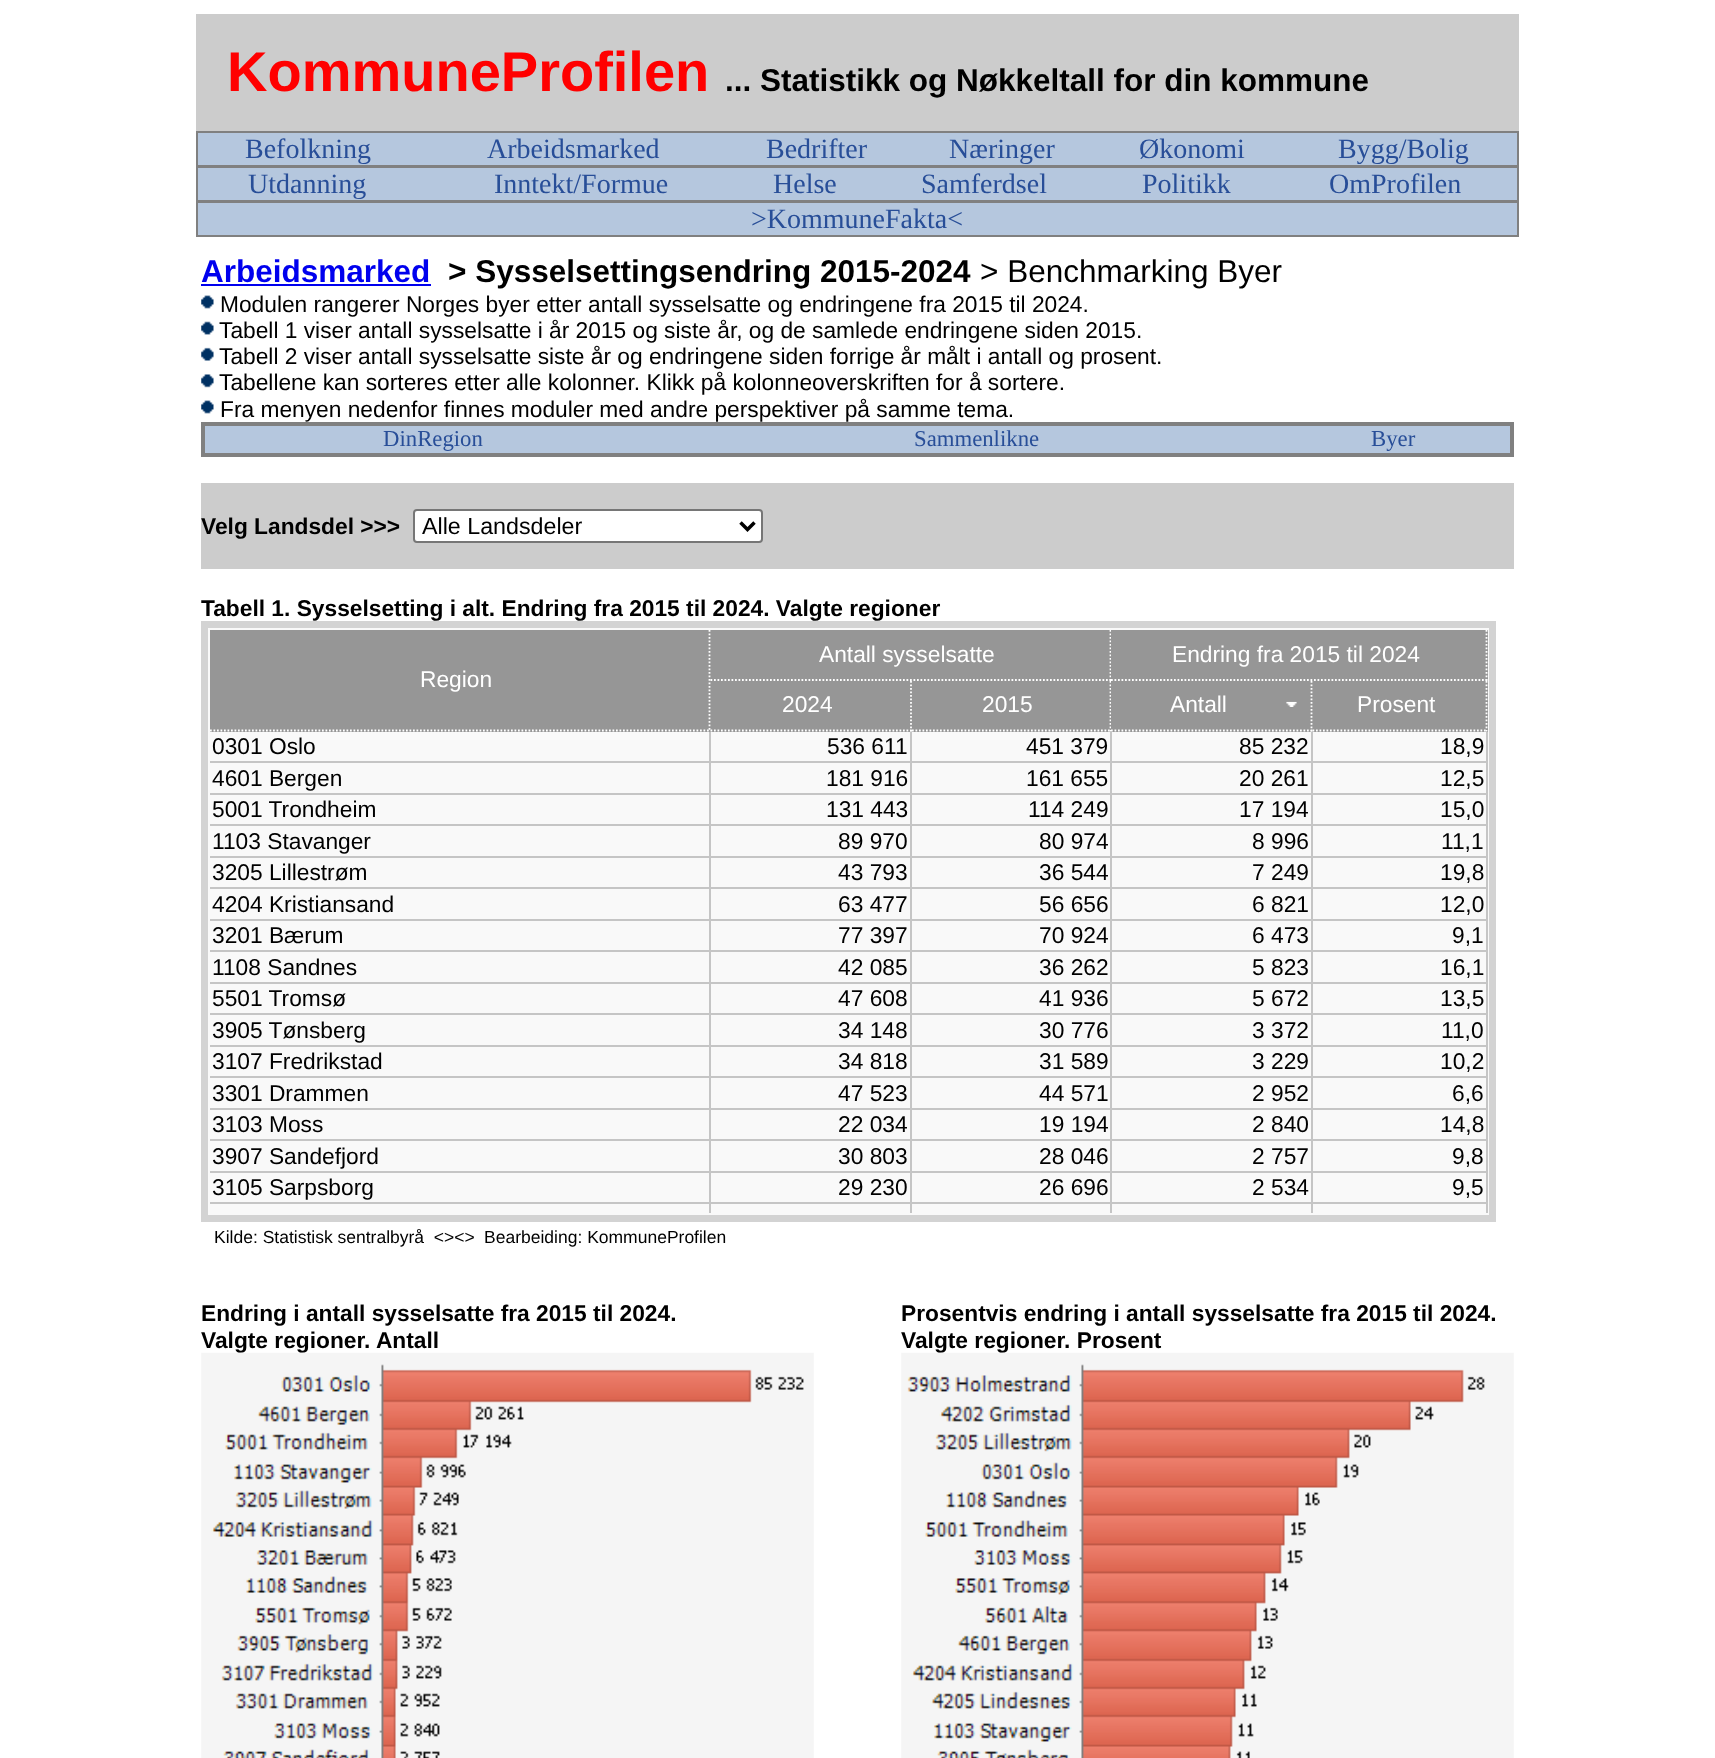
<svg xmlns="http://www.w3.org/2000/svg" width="1715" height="1758">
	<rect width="100%" height="100%" fill="#FFFFFF" />
	<rect x="196" y="14" width="1323" height="117" fill="#CCCCCC" />
	<text x="227" y="91" font-family="Liberation Sans" font-size="56" font-weight="700" fill="#FF0000">KommuneProfilen</text>
	<text x="725" y="91" font-family="Liberation Sans" font-size="31.5" font-weight="700" fill="#000000">... Statistikk og Nøkkeltall for din kommune</text>
	<rect x="198" y="133" width="1319" height="32" fill="#B5C7DE" />
	<rect x="196" y="131" width="1323" height="2" fill="#808080" />
	<rect x="1517" y="131" width="2" height="35" fill="#808080" />
	<rect x="196" y="165" width="1323" height="3" fill="#808080" />
	<rect x="196" y="131" width="2" height="35" fill="#808080" />
	<g font-family="Liberation Serif" font-size="28" fill="#284E98">
		<text x="245" y="158">Befolkning</text>
		<text x="487" y="158">Arbeidsmarked</text>
		<text x="766" y="158">Bedrifter</text>
		<text x="949" y="158">Næringer</text>
		<text x="1139" y="158">Økonomi</text>
		<text x="1338" y="158">Bygg/Bolig</text>
	</g>
	<rect x="198" y="168" width="1319" height="32" fill="#B5C7DE" />
	<rect x="1517" y="166" width="2" height="35" fill="#808080" />
	<rect x="196" y="200" width="1323" height="3" fill="#808080" />
	<rect x="196" y="166" width="2" height="35" fill="#808080" />
	<g font-family="Liberation Serif" font-size="28" fill="#284E98">
		<text x="248" y="193">Utdanning</text>
		<text x="494" y="193">Inntekt/Formue</text>
		<text x="773" y="193">Helse</text>
		<text x="921" y="193">Samferdsel</text>
		<text x="1142" y="193">Politikk</text>
		<text x="1329" y="193">OmProfilen</text>
	</g>
	<rect x="198" y="203" width="1319" height="32" fill="#B5C7DE" />
	<rect x="1517" y="201" width="2" height="35" fill="#808080" />
	<rect x="196" y="235" width="1323" height="2" fill="#808080" />
	<rect x="196" y="201" width="2" height="35" fill="#808080" />
	<text x="751" y="228" font-family="Liberation Serif" font-size="28" fill="#284E98">&gt;KommuneFakta&lt;</text>
	<text x="201" y="282" font-family="Liberation Sans" font-size="31.5" font-weight="700" fill="#0000EE">Arbeidsmarked</text>
	<rect x="201" y="284" width="230" height="2" fill="#0000EE" />
	<text x="448" y="282" font-family="Liberation Sans" font-size="31.5" font-weight="700" fill="#000000">&gt; Sysselsettingsendring 2015-2024</text>
	<text x="980" y="282" font-family="Liberation Sans" font-size="31.5" fill="#000000">&gt; Benchmarking Byer</text>
	<image x="201" y="295" width="13" height="14" href="assets/img1.png" />
	<text x="220" y="312" font-family="Liberation Sans" font-size="22.75" fill="#000000">Modulen rangerer Norges byer etter antall sysselsatte og endringene fra 2015 til 2024.</text>
	<image x="201" y="321" width="13" height="14" href="assets/img2.png" />
	<text x="219" y="338" font-family="Liberation Sans" font-size="22.75" fill="#000000">Tabell 1 viser antall sysselsatte i år 2015 og siste år, og de samlede endringene siden 2015.</text>
	<image x="201" y="347" width="13" height="14" href="assets/img3.png" />
	<text x="219" y="364" font-family="Liberation Sans" font-size="22.75" fill="#000000">Tabell 2 viser antall sysselsatte siste år og endringene siden forrige år målt i antall og prosent.</text>
	<image x="201" y="374" width="13" height="14" href="assets/img4.png" />
	<text x="219" y="390" font-family="Liberation Sans" font-size="22.75" fill="#000000">Tabellene kan sorteres etter alle kolonner. Klikk på kolonneoverskriften for å sortere.</text>
	<image x="201" y="400" width="13" height="14" href="assets/img1.png" />
	<text x="220" y="417" font-family="Liberation Sans" font-size="22.75" fill="#000000">Fra menyen nedenfor finnes moduler med andre perspektiver på samme tema.</text>
	<rect x="205" y="426" width="1305" height="27" fill="#B5C7DE" />
	<rect x="201" y="422" width="1313" height="4" fill="#808080" />
	<rect x="1510" y="422" width="4" height="35" fill="#808080" />
	<rect x="201" y="453" width="1313" height="4" fill="#808080" />
	<rect x="201" y="422" width="4" height="35" fill="#808080" />
	<g font-family="Liberation Serif" font-size="22.75" fill="#284E98">
		<text x="383" y="446">DinRegion</text>
		<text x="914" y="446">Sammenlikne</text>
		<text x="1371" y="446">Byer</text>
	</g>
	<rect x="201" y="483" width="1313" height="86" fill="#CCCCCC" />
	<text x="201" y="534" font-family="Liberation Sans" font-size="22.75" font-weight="700" fill="#000000">Velg Landsdel &gt;&gt;&gt;</text>
	<rect x="414" y="510" width="348" height="32" rx="3" fill="#FFFFFF" stroke="#767676" stroke-width="2" />
	<path d="M740.5 522.5L747.5 529.5L754.5 522.5" fill="none" stroke="#000000" stroke-width="3.5" />
	<text x="422" y="534" font-family="Liberation Sans" font-size="23.25" fill="#000000">Alle Landsdeler</text>
	<text x="201" y="616" font-family="Liberation Sans" font-size="22.75" font-weight="700" fill="#000000">Tabell 1. Sysselsetting i alt. Endring fra 2015 til 2024. Valgte regioner</text>
	<rect x="204.5" y="624.5" width="1288" height="594" fill="#F9F9F9" stroke="#D3D3D3" stroke-width="7" />
	<rect x="711" y="630" width="400" height="51" fill="#969696" />
	<path d="M1110.5 630V681" fill="none" stroke="#FFFFFF" stroke-width="1.8" stroke-dasharray="1.75 1.75" />
	<rect x="210" y="630" width="501" height="102" fill="#969696" />
	<path d="M709.5 630V731.5" fill="none" stroke="#FFFFFF" stroke-width="1.8" stroke-dasharray="1.75 1.75" />
	<path d="M710.5 680H1111" fill="none" stroke="#FFFFFF" stroke-width="1.8" stroke-dasharray="1.75 1.75" />
	<text x="819" y="662" font-family="Liberation Sans" font-size="22.75" fill="#FFFFFF">Antall sysselsatte</text>
	<rect x="1111" y="630" width="377" height="51" fill="#969696" />
	<path d="M1486.5 630V681" fill="none" stroke="#FFFFFF" stroke-width="1.8" stroke-dasharray="1.75 1.75" />
	<path d="M1111 680H1487.5" fill="none" stroke="#FFFFFF" stroke-width="1.8" stroke-dasharray="1.75 1.75" />
	<text x="1172" y="662" font-family="Liberation Sans" font-size="22.75" fill="#FFFFFF">Endring fra 2015 til 2024</text>
	<path d="M210 730.5H710.5" fill="none" stroke="#FFFFFF" stroke-width="1.8" stroke-dasharray="1.75 1.75" />
	<text x="420" y="687" font-family="Liberation Sans" font-size="22.75" fill="#FFFFFF">Region</text>
	<rect x="711" y="681" width="400" height="51" fill="#969696" />
	<path d="M911 681V731.5" fill="none" stroke="#FFFFFF" stroke-width="1.8" stroke-dasharray="1.75 1.75" />
	<path d="M710.5 730.5H912" fill="none" stroke="#FFFFFF" stroke-width="1.8" stroke-dasharray="1.75 1.75" />
	<text x="782" y="712" font-family="Liberation Sans" font-size="22.75" fill="#FFFFFF">2024</text>
	<path d="M1110.5 681V731.5" fill="none" stroke="#FFFFFF" stroke-width="1.8" stroke-dasharray="1.75 1.75" />
	<path d="M912 730.5H1111" fill="none" stroke="#FFFFFF" stroke-width="1.8" stroke-dasharray="1.75 1.75" />
	<text x="982" y="712" font-family="Liberation Sans" font-size="22.75" fill="#FFFFFF">2015</text>
	<rect x="1111" y="681" width="377" height="51" fill="#969696" />
	<path d="M1311.5 681V731.5" fill="none" stroke="#FFFFFF" stroke-width="1.8" stroke-dasharray="1.75 1.75" />
	<path d="M1111 730.5H1312.5" fill="none" stroke="#FFFFFF" stroke-width="1.8" stroke-dasharray="1.75 1.75" />
	<text x="1170" y="712" font-family="Liberation Sans" font-size="22.75" fill="#FFFFFF">Antall</text>
	<image x="1286" y="701" width="11" height="6" href="assets/img5.png" />
	<path d="M1486.5 681V731.5" fill="none" stroke="#FFFFFF" stroke-width="1.8" stroke-dasharray="1.75 1.75" />
	<path d="M1312.5 730.5H1487.5" fill="none" stroke="#FFFFFF" stroke-width="1.8" stroke-dasharray="1.75 1.75" />
	<text x="1357" y="712" font-family="Liberation Sans" font-size="22.75" fill="#FFFFFF">Prosent</text>
	<rect x="709" y="732" width="2" height="481" fill="#C5C5C5" />
	<rect x="210" y="761" width="501" height="2" fill="#C5C5C5" />
	<text x="212" y="754" font-family="Liberation Sans" font-size="22.75" fill="#000000">0301 Oslo</text>
	<rect x="910" y="732" width="2" height="481" fill="#C5C5C5" />
	<rect x="711" y="761" width="201" height="2" fill="#C5C5C5" />
	<text x="827" y="754" font-family="Liberation Sans" font-size="22.75" fill="#000000">536 611</text>
	<rect x="1110" y="732" width="2" height="481" fill="#C5C5C5" />
	<rect x="912" y="761" width="199" height="2" fill="#C5C5C5" />
	<text x="1026" y="754" font-family="Liberation Sans" font-size="22.75" fill="#000000">451 379</text>
	<rect x="1311" y="732" width="2" height="481" fill="#C5C5C5" />
	<rect x="1111" y="761" width="202" height="2" fill="#C5C5C5" />
	<text x="1239" y="754" font-family="Liberation Sans" font-size="22.75" fill="#000000">85 232</text>
	<rect x="1486" y="732" width="2" height="481" fill="#C5C5C5" />
	<rect x="1313" y="761" width="175" height="2" fill="#C5C5C5" />
	<text x="1440" y="754" font-family="Liberation Sans" font-size="22.75" fill="#000000">18,9</text>
	<rect x="210" y="793" width="1278" height="2" fill="#C5C5C5" />
	<g font-family="Liberation Sans" font-size="22.75" fill="#000000">
		<text x="212" y="786">4601 Bergen</text>
		<text x="826" y="786">181 916</text>
		<text x="1026" y="786">161 655</text>
		<text x="1239" y="786">20 261</text>
		<text x="1440" y="786">12,5</text>
	</g>
	<rect x="210" y="824" width="1278" height="2" fill="#C5C5C5" />
	<g font-family="Liberation Sans" font-size="22.75" fill="#000000">
		<text x="212" y="817">5001 Trondheim</text>
		<text x="826" y="817">131 443</text>
		<text x="1028" y="817">114 249</text>
		<text x="1239" y="817">17 194</text>
		<text x="1440" y="817">15,0</text>
	</g>
	<rect x="210" y="856" width="1278" height="2" fill="#C5C5C5" />
	<g font-family="Liberation Sans" font-size="22.75" fill="#000000">
		<text x="212" y="849">1103 Stavanger</text>
		<text x="838" y="849">89 970</text>
		<text x="1039" y="849">80 974</text>
		<text x="1252" y="849">8 996</text>
		<text x="1441" y="849">11,1</text>
	</g>
	<rect x="210" y="887" width="1278" height="2" fill="#C5C5C5" />
	<g font-family="Liberation Sans" font-size="22.75" fill="#000000">
		<text x="212" y="880">3205 Lillestrøm</text>
		<text x="838" y="880">43 793</text>
		<text x="1039" y="880">36 544</text>
		<text x="1252" y="880">7 249</text>
		<text x="1440" y="880">19,8</text>
	</g>
	<rect x="210" y="919" width="1278" height="2" fill="#C5C5C5" />
	<g font-family="Liberation Sans" font-size="22.75" fill="#000000">
		<text x="212" y="912">4204 Kristiansand</text>
		<text x="838" y="912">63 477</text>
		<text x="1039" y="912">56 656</text>
		<text x="1252" y="912">6 821</text>
		<text x="1440" y="912">12,0</text>
	</g>
	<rect x="210" y="950" width="1278" height="2" fill="#C5C5C5" />
	<g font-family="Liberation Sans" font-size="22.75" fill="#000000">
		<text x="212" y="943">3201 Bærum</text>
		<text x="838" y="943">77 397</text>
		<text x="1039" y="943">70 924</text>
		<text x="1252" y="943">6 473</text>
		<text x="1452" y="943">9,1</text>
	</g>
	<rect x="210" y="982" width="1278" height="2" fill="#C5C5C5" />
	<g font-family="Liberation Sans" font-size="22.75" fill="#000000">
		<text x="212" y="975">1108 Sandnes</text>
		<text x="838" y="975">42 085</text>
		<text x="1039" y="975">36 262</text>
		<text x="1252" y="975">5 823</text>
		<text x="1440" y="975">16,1</text>
	</g>
	<rect x="210" y="1013" width="1278" height="2" fill="#C5C5C5" />
	<g font-family="Liberation Sans" font-size="22.75" fill="#000000">
		<text x="212" y="1006">5501 Tromsø</text>
		<text x="838" y="1006">47 608</text>
		<text x="1039" y="1006">41 936</text>
		<text x="1252" y="1006">5 672</text>
		<text x="1440" y="1006">13,5</text>
	</g>
	<rect x="210" y="1045" width="1278" height="2" fill="#C5C5C5" />
	<g font-family="Liberation Sans" font-size="22.75" fill="#000000">
		<text x="212" y="1038">3905 Tønsberg</text>
		<text x="838" y="1038">34 148</text>
		<text x="1039" y="1038">30 776</text>
		<text x="1252" y="1038">3 372</text>
		<text x="1441" y="1038">11,0</text>
	</g>
	<rect x="210" y="1076" width="1278" height="2" fill="#C5C5C5" />
	<g font-family="Liberation Sans" font-size="22.75" fill="#000000">
		<text x="212" y="1069">3107 Fredrikstad</text>
		<text x="838" y="1069">34 818</text>
		<text x="1039" y="1069">31 589</text>
		<text x="1252" y="1069">3 229</text>
		<text x="1440" y="1069">10,2</text>
	</g>
	<rect x="210" y="1108" width="1278" height="2" fill="#C5C5C5" />
	<g font-family="Liberation Sans" font-size="22.75" fill="#000000">
		<text x="212" y="1101">3301 Drammen</text>
		<text x="838" y="1101">47 523</text>
		<text x="1039" y="1101">44 571</text>
		<text x="1252" y="1101">2 952</text>
		<text x="1452" y="1101">6,6</text>
	</g>
	<rect x="210" y="1139" width="1278" height="2" fill="#C5C5C5" />
	<g font-family="Liberation Sans" font-size="22.75" fill="#000000">
		<text x="212" y="1132">3103 Moss</text>
		<text x="838" y="1132">22 034</text>
		<text x="1039" y="1132">19 194</text>
		<text x="1252" y="1132">2 840</text>
		<text x="1440" y="1132">14,8</text>
	</g>
	<rect x="210" y="1171" width="1278" height="2" fill="#C5C5C5" />
	<g font-family="Liberation Sans" font-size="22.75" fill="#000000">
		<text x="212" y="1164">3907 Sandefjord</text>
		<text x="838" y="1164">30 803</text>
		<text x="1039" y="1164">28 046</text>
		<text x="1252" y="1164">2 757</text>
		<text x="1452" y="1164">9,8</text>
	</g>
	<rect x="210" y="1202" width="1278" height="2" fill="#C5C5C5" />
	<g font-family="Liberation Sans" font-size="22.75" fill="#000000">
		<text x="212" y="1195">3105 Sarpsborg</text>
		<text x="838" y="1195">29 230</text>
		<text x="1039" y="1195">26 696</text>
		<text x="1252" y="1195">2 534</text>
		<text x="1452" y="1195">9,5</text>
	</g>
	<g font-family="Liberation Sans" font-size="17.5" fill="#000000">
		<text x="214" y="1243" xml:space="preserve">Kilde: Statistisk sentralbyrå  &lt;&gt;&lt;&gt;</text>
		<text x="484" y="1243">Bearbeiding: KommuneProfilen</text>
	</g>
	<g font-family="Liberation Sans" font-size="22.75" font-weight="700" fill="#000000">
		<text x="201" y="1321">Endring i antall sysselsatte fra 2015 til 2024.</text>
		<text x="201" y="1348">Valgte regioner. Antall</text>
	</g>
	<image x="201" y="1352" width="613" height="406" href="assets/img6.png" />
	<g font-family="Liberation Sans" font-size="22.75" font-weight="700" fill="#000000">
		<text x="901" y="1321">Prosentvis endring i antall sysselsatte fra 2015 til 2024.</text>
		<text x="901" y="1348">Valgte regioner. Prosent</text>
	</g>
	<image x="901" y="1352" width="613" height="406" href="assets/img7.png" />
</svg>
